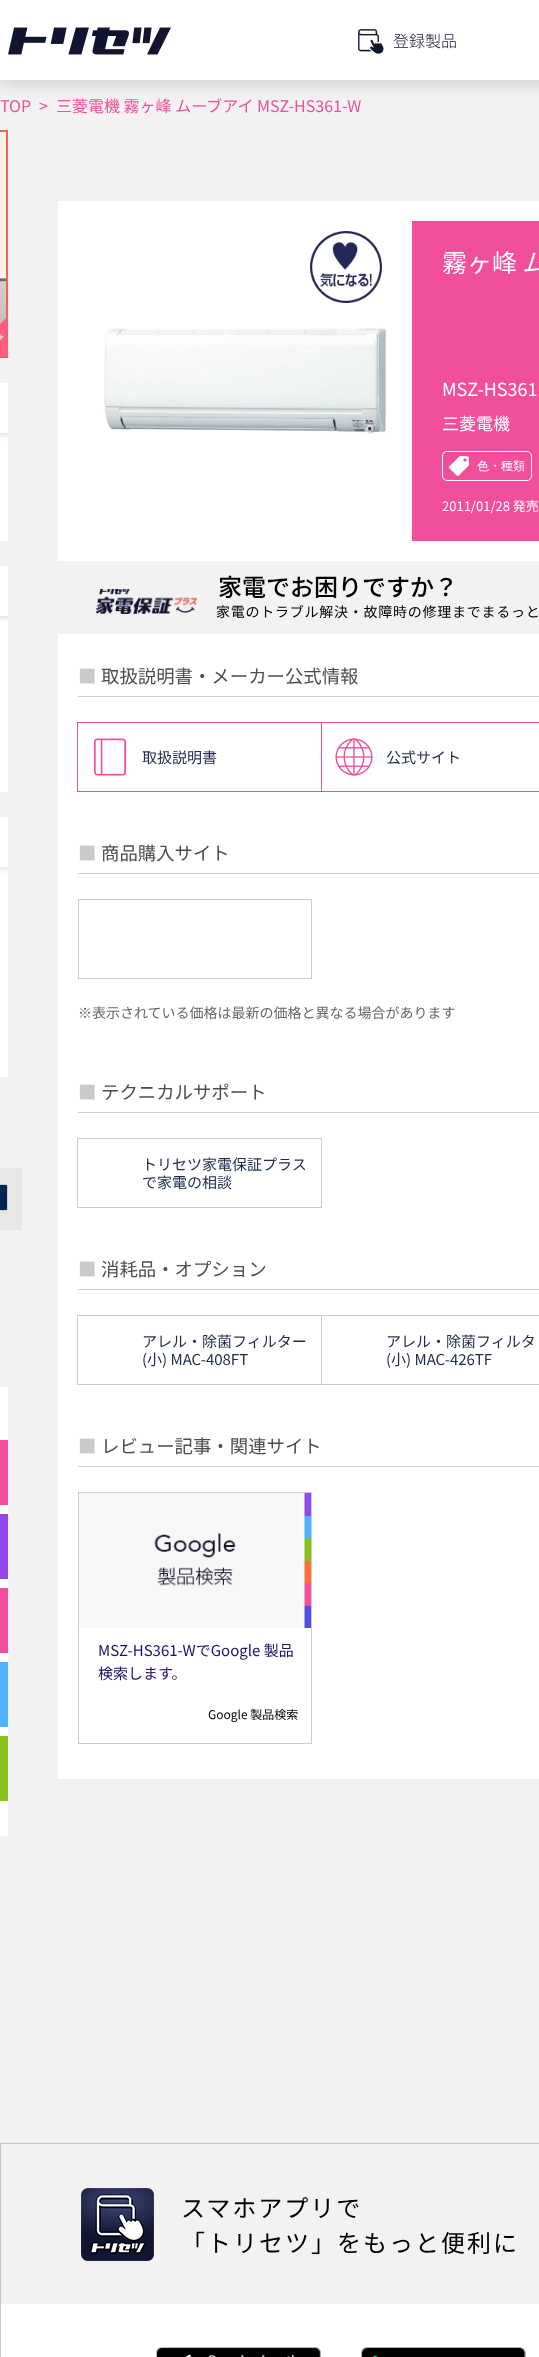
<svg xmlns="http://www.w3.org/2000/svg" width="539" height="2357">
	<defs>
		<clipPath id="clip1"><rect x="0" y="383" width="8" height="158" /></clipPath>
		<clipPath id="clip2"><rect x="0" y="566" width="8" height="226" /></clipPath>
		<clipPath id="clip3"><rect x="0" y="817" width="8" height="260" /></clipPath>
	</defs>
	<rect width="100%" height="100%" fill="#F2F2F2" />
	<rect x="0" y="0" width="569" height="80" fill="#000000" fill-opacity="0.2" filter="blur(10px)" />
	<rect x="0" y="0" width="539" height="80" fill="#FFFFFF" />
	<image x="8" y="27" width="163" height="28" href="assets/img1.png" />
	<image x="358" y="29" width="26" height="25" href="assets/img2.png" />
	<text x="393" y="47" font-family="Noto Sans JP" font-size="16" font-weight="300" fill="#12152F">登録製品</text>
	<g font-family="Noto Sans JP" font-size="16" fill="#F14E9C">
		<text x="0" y="112">TOP</text>
		<text x="39" y="112">&gt;</text>
		<text x="56" y="112">三菱電機 霧ヶ峰 ムーブアイ MSZ-HS361-W</text>
	</g>
	<rect x="0" y="130" width="6" height="148" fill="#FFF2E7" />
	<rect x="-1" y="131" width="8" height="226" fill="none" stroke="#E96755" stroke-width="2" />
	<image x="0" y="278" width="6" height="48" href="assets/img3.png" />
	<image x="0" y="317" width="7" height="40" href="assets/img4.png" />
	<rect x="0" y="433" width="8" height="108" fill="#FFFFFF" />
	<g clip-path="url(#clip1)">
		<rect x="-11" y="373" width="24" height="60" fill="#000000" fill-opacity="0.2" filter="blur(3.5px)" />
	</g>
	<rect x="0" y="383" width="8" height="50" fill="#FFFFFF" />
	<rect x="0" y="616" width="8" height="176" fill="#FFFFFF" />
	<g clip-path="url(#clip2)">
		<rect x="-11" y="556" width="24" height="60" fill="#000000" fill-opacity="0.2" filter="blur(3.5px)" />
	</g>
	<rect x="0" y="566" width="8" height="50" fill="#FFFFFF" />
	<rect x="0" y="867" width="8" height="210" fill="#FFFFFF" />
	<g clip-path="url(#clip3)">
		<rect x="-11" y="807" width="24" height="60" fill="#000000" fill-opacity="0.2" filter="blur(3.5px)" />
	</g>
	<rect x="0" y="817" width="8" height="50" fill="#FFFFFF" />
	<rect x="0" y="1168" width="22" height="62" fill="#E7E7E7" />
	<rect x="-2.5" y="1184.5" width="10" height="26" rx="1.5" fill="#002351" stroke="#CCCCCC" />
	<rect x="0" y="1387" width="8" height="449" fill="#FFFFFF" />
	<rect x="0" y="1440" width="8" height="65" fill="#F14E9C" />
	<rect x="0" y="1514" width="8" height="65" fill="#9248EA" />
	<rect x="0" y="1588" width="8" height="65" fill="#F14E9C" />
	<rect x="0" y="1662" width="8" height="65" fill="#4FB2FF" />
	<rect x="0" y="1736" width="8" height="65" fill="#89C01C" />
	<rect x="412" y="221" width="127" height="320" fill="#F14E9C" />
	<rect x="68" y="211" width="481" height="340" fill="none" stroke="#FFFFFF" stroke-width="20" />
	<rect x="78" y="221" width="334" height="320" fill="#FFFFFF" />
	<image x="104" y="328" width="283" height="106" href="assets/img5.png" />
	<image x="310" y="231" width="72" height="72" href="assets/img6.png" />
	<text x="442" y="272" font-family="Noto Sans JP" font-size="25" fill="#FFFFFF">霧ヶ峰 ム</text>
	<text x="442" y="396" font-family="Noto Sans JP" font-size="18" fill="#FFFFFF">MSZ-HS361</text>
	<text x="442" y="430" font-family="Noto Sans JP" font-size="17" fill="#FFFFFF">三菱電機</text>
	<rect x="442.5" y="451.5" width="89" height="29" rx="4.5" fill="none" stroke="#FFFFFF" />
	<image x="449" y="456" width="20" height="20" href="assets/img7.png" />
	<text x="477" y="470" font-family="WenQuanYi Zen Hei" font-size="12" font-weight="500" fill="#FFFFFF">色・種類</text>
	<text x="442" y="511" font-family="Noto Sans JP" font-size="13" fill="#FFFFFF">2011/01/28 発売</text>
	<image x="96" y="589" width="101" height="25" href="assets/img8.png" />
	<text x="218" y="596" font-family="Noto Sans JP" font-size="24" font-weight="500" fill="#000000">家電でお困りですか？</text>
	<text x="216" y="617" font-family="Noto Sans JP" font-size="14" letter-spacing="0.75" fill="#000000">家電のトラブル解決・故障時の修理までまるっと</text>
	<rect x="58" y="634" width="481" height="1145" fill="#FFFFFF" />
	<rect x="78" y="696" width="461" height="1" fill="#D0D0D0" />
	<text x="78" y="683" font-family="Noto Sans JP" font-size="18.4" fill="#CACACA">■</text>
	<text x="101" y="683" font-family="Noto Sans JP" font-size="18.4" fill="#4D4D4D">取扱説明書・メーカー公式情報</text>
	<rect x="77.5" y="722.5" width="244" height="69" fill="none" stroke="#F14E9C" />
	<image x="94" y="738" width="33" height="38" href="assets/img9.png" />
	<text x="142" y="763" font-family="Noto Sans JP" font-size="15" fill="#1C2A4C">取扱説明書</text>
	<rect x="321.5" y="722.5" width="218" height="69" fill="none" stroke="#F14E9C" />
	<image x="335" y="738" width="38" height="38" href="assets/img10.png" />
	<text x="386" y="763" font-family="Noto Sans JP" font-size="15" fill="#1C2A4C">公式サイト</text>
	<rect x="78" y="873" width="461" height="1" fill="#D0D0D0" />
	<text x="78" y="860" font-family="Noto Sans JP" font-size="18.4" fill="#CACACA">■</text>
	<text x="101" y="860" font-family="Noto Sans JP" font-size="18.4" fill="#4D4D4D">商品購入サイト</text>
	<rect x="78.5" y="899.5" width="233" height="79" fill="none" stroke="#CCCCCC" />
	<text x="78" y="1018" font-family="Noto Sans JP" font-size="14" fill="#666666">※表示されている価格は最新の価格と異なる場合があります</text>
	<rect x="78" y="1112" width="461" height="1" fill="#D0D0D0" />
	<text x="78" y="1099" font-family="Noto Sans JP" font-size="18.4" fill="#CACACA">■</text>
	<text x="101" y="1099" font-family="Noto Sans JP" font-size="18.4" fill="#4D4D4D">テクニカルサポート</text>
	<rect x="77.5" y="1138.5" width="244" height="69" fill="none" stroke="#CCCCCC" />
	<g font-family="Noto Sans JP" font-size="15" fill="#1C2A4C">
		<text x="142" y="1170">トリセツ家電保証プラス</text>
		<text x="142" y="1188">で家電の相談</text>
	</g>
	<rect x="78" y="1289" width="461" height="1" fill="#D0D0D0" />
	<text x="78" y="1276" font-family="Noto Sans JP" font-size="18.4" fill="#CACACA">■</text>
	<text x="101" y="1276" font-family="Noto Sans JP" font-size="18.4" fill="#4D4D4D">消耗品・オプション</text>
	<rect x="77.5" y="1315.5" width="244" height="69" fill="none" stroke="#CCCCCC" />
	<g font-family="Noto Sans JP" font-size="15" fill="#1C2A4C">
		<text x="142" y="1347">アレル・除菌フィルター</text>
		<text x="142" y="1365">(小) MAC-408FT</text>
	</g>
	<rect x="321.5" y="1315.5" width="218" height="69" fill="none" stroke="#CCCCCC" />
	<g font-family="Noto Sans JP" font-size="15" fill="#1C2A4C">
		<text x="386" y="1347">アレル・除菌フィルタ</text>
		<text x="386" y="1365">(小) MAC-426TF</text>
	</g>
	<rect x="78" y="1466" width="461" height="1" fill="#D0D0D0" />
	<text x="78" y="1453" font-family="Noto Sans JP" font-size="18.4" fill="#CACACA">■</text>
	<text x="101" y="1453" font-family="Noto Sans JP" font-size="18.4" fill="#4D4D4D">レビュー記事・関連サイト</text>
	<rect x="78.5" y="1492.5" width="233" height="251" fill="none" stroke="#CCCCCC" />
	<image x="79" y="1493" width="232" height="135" href="assets/img11.png" />
	<g font-family="Noto Sans JP" font-size="15" fill="#1B1464">
		<text x="98" y="1656">MSZ-HS361-WでGoogle 製品</text>
		<text x="98" y="1679">検索します。</text>
	</g>
	<text x="208" y="1719" font-family="Noto Sans JP" font-size="12" fill="#000000">Google 製品検索</text>
	<rect x="1" y="2304" width="538" height="53" fill="#FFFFFF" />
	<rect x="0.5" y="2143.5" width="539" height="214" fill="none" stroke="#C6C6C6" />
	<image x="81" y="2188" width="73" height="73" href="assets/img12.png" />
	<g font-family="Noto Sans JP" font-size="24" letter-spacing="2" fill="#000000">
		<text x="181" y="2217">スマホアプリで</text>
		<text x="181" y="2252">「トリセツ」をもっと便利に</text>
	</g>
	<image x="156" y="2347" width="165" height="10" href="assets/img13.png" />
	<image x="361" y="2347" width="165" height="10" href="assets/img14.png" />
</svg>
